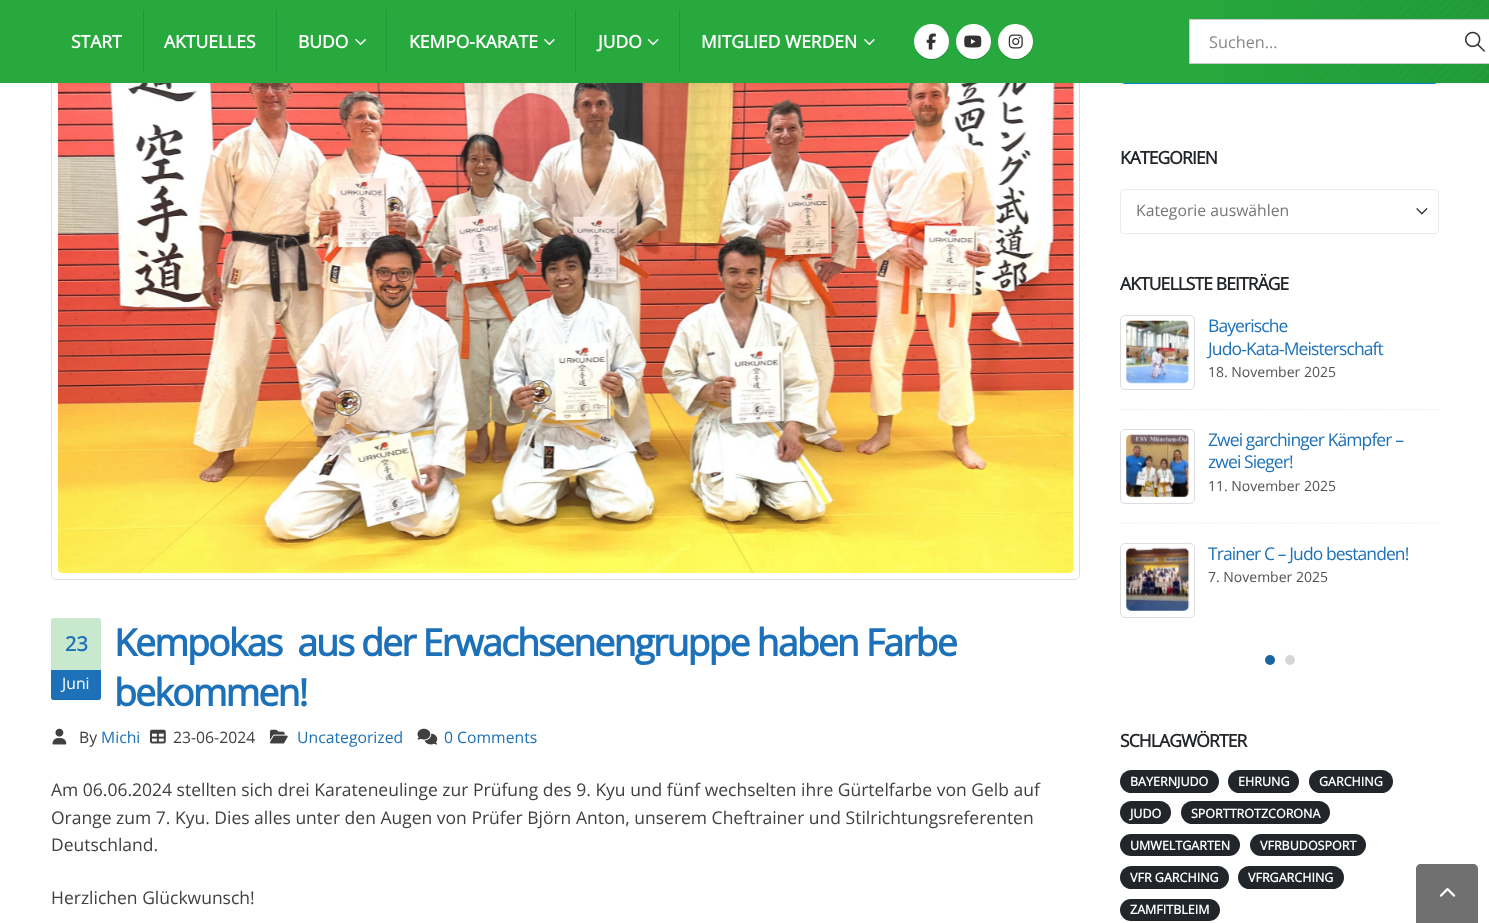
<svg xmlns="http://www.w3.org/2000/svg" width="1489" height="923">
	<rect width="100%" height="100%" fill="#FFFFFF" />
	<rect x="51.5" y="-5.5" width="1028" height="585" rx="4.5" fill="none" stroke="#DDDDDD" />
	<image x="58" y="83" width="1017" height="491" href="assets/img9.png" />
	<rect x="1120.5" y="36.5" width="318" height="47" rx="4.5" fill="none" stroke="#0088CC" />
	<rect x="0" y="0" width="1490" height="83" fill="#000000" fill-opacity="0.06" filter="blur(2px)" />
	<rect x="0" y="0" width="1224" height="83" fill="#27A93D" />
	<image x="1224" y="0" width="265" height="83" href="assets/img1.png" />
	<rect x="143" y="10" width="1" height="63" fill="#239837" />
	<text x="71" y="48" font-family="Open Sans" font-size="17.5" font-weight="700" fill="#FFFFFF">START</text>
	<rect x="276" y="10" width="1" height="63" fill="#239837" />
	<text x="164" y="48" font-family="Open Sans" font-size="17.5" font-weight="700" fill="#FFFFFF">AKTUELLES</text>
	<rect x="386" y="10" width="1" height="63" fill="#239837" />
	<text x="298" y="48" font-family="Open Sans" font-size="17.5" font-weight="700" fill="#FFFFFF">BUDO</text>
	<image x="355" y="39" width="11" height="7" href="assets/img2.png" />
	<rect x="575" y="10" width="1" height="63" fill="#239837" />
	<text x="409" y="48" font-family="Open Sans" font-size="17.5" font-weight="700" fill="#FFFFFF">KEMPO-KARATE</text>
	<image x="544" y="39" width="11" height="7" href="assets/img3.png" />
	<rect x="679" y="10" width="1" height="63" fill="#239837" />
	<text x="598" y="48" font-family="Open Sans" font-size="17.5" font-weight="700" fill="#FFFFFF">JUDO</text>
	<image x="647" y="39" width="12" height="7" href="assets/img4.png" />
	<text x="701" y="48" font-family="Open Sans" font-size="17.5" font-weight="700" fill="#FFFFFF">MITGLIED WERDEN</text>
	<image x="864" y="39" width="11" height="7" href="assets/img3.png" />
	<rect x="914" y="25" width="35" height="35" rx="17.5" fill="#000000" fill-opacity="0.2" filter="blur(0.5px)" />
	<circle cx="931.5" cy="41.5" r="17.5" fill="#FFFFFF" />
	<image x="926" y="33" width="10" height="17" href="assets/img5.png" />
	<rect x="956" y="25" width="35" height="35" rx="17.5" fill="#000000" fill-opacity="0.2" filter="blur(0.5px)" />
	<circle cx="973.5" cy="41.5" r="17.5" fill="#FFFFFF" />
	<image x="964" y="35" width="18" height="13" href="assets/img6.png" />
	<rect x="998" y="25" width="35" height="35" rx="17.5" fill="#000000" fill-opacity="0.2" filter="blur(0.5px)" />
	<circle cx="1015.5" cy="41.5" r="17.5" fill="#FFFFFF" />
	<image x="1008" y="34" width="15" height="15" href="assets/img7.png" />
	<rect x="1189.5" y="19.5" width="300" height="44" fill="#FFFFFF" stroke="#CCCCCC" />
	<text x="1209" y="48" font-family="Open Sans" font-size="16.25" fill="#888888">Suchen...</text>
	<image x="1465" y="31" width="20" height="21" href="assets/img8.png" />
	<g font-family="Open Sans" font-size="37.5" font-weight="700" letter-spacing="-1.9" fill="#1D71B8">
		<text x="114" y="656" xml:space="preserve">Kempokas  aus der Erwachsenengruppe haben Farbe</text>
		<text x="114" y="706">bekommen!</text>
	</g>
	<image x="52" y="728" width="15" height="17" href="assets/img10.png" />
	<text x="79" y="743" font-family="Open Sans" font-size="15.75" fill="#404040">By</text>
	<text x="101" y="743" font-family="Open Sans" font-size="15.75" fill="#1D71B8">Michi</text>
	<image x="150" y="729" width="16" height="15" href="assets/img11.png" />
	<text x="173" y="743" font-family="Open Sans" font-size="15.75" fill="#404040">23-06-2024</text>
	<image x="270" y="729" width="18" height="15" href="assets/img12.png" />
	<text x="297" y="743" font-family="Open Sans" font-size="15.75" fill="#1D71B8">Uncategorized</text>
	<image x="417" y="728" width="21" height="17" href="assets/img13.png" />
	<text x="444" y="743" font-family="Open Sans" font-size="15.75" fill="#1D71B8">0 Comments</text>
	<g font-family="Open Sans" font-size="17.5" fill="#404040">
		<text x="51" y="796">Am 06.06.2024 stellten sich drei Karateneulinge zur Prüfung des 9. Kyu und fünf wechselten ihre Gürtelfarbe von Gelb auf</text>
		<text x="51" y="824">Orange zum 7. Kyu. Dies alles unter den Augen von Prüfer Björn Anton, unserem Cheftrainer und Stilrichtungsreferenten</text>
		<text x="51" y="851">Deutschland.</text>
		<text x="51" y="904">Herzlichen Glückwunsch!</text>
	</g>
	<path d="M53.5 618H98.5C100 618 101 619 101 620.5V670H51V620.5C51 619 52 618 53.5 618Z" fill="#C9E9CE" />
	<text x="65" y="651" font-family="Open Sans" font-size="20" font-weight="700" fill="#1D71B8">23</text>
	<path d="M51 670H101V697.5C101 699 100 700 98.5 700H53.5C52 700 51 699 51 697.5Z" fill="#1D71B8" />
	<path d="M51 696C51 702 56 700 61 700H91C96 700 101 702 101 696C101 698 100 699 99 699H54C52 699 51 698 51 696Z" fill="#000000" fill-opacity="0.07" />
	<text x="62" y="689" font-family="Open Sans" font-size="15.75" fill="#FFFFFF">Juni</text>
	<text x="1120" y="164" font-family="Open Sans" font-size="17.5" font-weight="700" letter-spacing="-0.9" fill="#222529">KATEGORIEN</text>
	<image x="1416" y="208" width="12" height="7" href="assets/img14.png" />
	<rect x="1120.5" y="189.5" width="318" height="44" rx="3.5" fill="none" stroke="#EBEBEB" />
	<text x="1136" y="216" font-family="Open Sans" font-size="15.75" fill="#777777">Kategorie auswählen</text>
	<text x="1120" y="290" font-family="Open Sans" font-size="17.5" font-weight="700" letter-spacing="-0.9" fill="#222529">AKTUELLSTE BEITRÄGE</text>
	<rect x="1120.5" y="315.5" width="74" height="74" rx="4.5" fill="none" stroke="#DDDDDD" />
	<image x="1126" y="320" width="64" height="64" href="assets/img15.png" />
	<g font-family="Open Sans" font-size="17.5" letter-spacing="-0.9" fill="#1D71B8">
		<text x="1208" y="332">Bayerische</text>
		<text x="1208" y="355">Judo‑Kata‑Meisterschaft</text>
	</g>
	<text x="1208" y="377" font-family="Open Sans" font-size="14" fill="#525252">18. November 2025</text>
	<path d="M1120 409.5H1439" fill="none" stroke="#E7E7E7" stroke-width="1.2" stroke-dasharray="1.25 1.25" />
	<rect x="1120.5" y="429.5" width="74" height="74" rx="4.5" fill="none" stroke="#DDDDDD" />
	<image x="1126" y="434" width="64" height="64" href="assets/img16.png" />
	<g font-family="Open Sans" font-size="17.5" letter-spacing="-0.9" fill="#1D71B8">
		<text x="1208" y="446">Zwei garchinger Kämpfer –</text>
		<text x="1208" y="468">zwei Sieger!</text>
	</g>
	<text x="1208" y="491" font-family="Open Sans" font-size="14" fill="#525252">11. November 2025</text>
	<path d="M1120 523H1439" fill="none" stroke="#E7E7E7" stroke-width="1.2" stroke-dasharray="1.25 1.25" />
	<rect x="1120.5" y="543.5" width="74" height="74" rx="4.5" fill="none" stroke="#DDDDDD" />
	<image x="1126" y="547" width="64" height="64" href="assets/img17.png" />
	<text x="1208" y="560" font-family="Open Sans" font-size="17.5" letter-spacing="-0.9" fill="#1D71B8">Trainer C – Judo bestanden!</text>
	<text x="1208" y="582" font-family="Open Sans" font-size="14" fill="#525252">7. November 2025</text>
	<circle cx="1270" cy="660" r="5" fill="#1A64A2" />
	<circle cx="1290" cy="660" r="5" fill="#D6D6D6" />
	<text x="1120" y="747" font-family="Open Sans" font-size="17.5" font-weight="700" letter-spacing="-0.9" fill="#222529">SCHLAGWÖRTER</text>
	<rect x="1120" y="770" width="99" height="23" rx="11.5" fill="#222529" />
	<text x="1130" y="786" font-family="Open Sans" font-size="12.5" font-weight="700" fill="#FFFFFF">BAYERNJUDO</text>
	<rect x="1228" y="770" width="71" height="23" rx="11.5" fill="#222529" />
	<text x="1238" y="786" font-family="Open Sans" font-size="12.5" font-weight="700" fill="#FFFFFF">EHRUNG</text>
	<rect x="1309" y="770" width="84" height="23" rx="11.5" fill="#222529" />
	<text x="1319" y="786" font-family="Open Sans" font-size="12.5" font-weight="700" fill="#FFFFFF">GARCHING</text>
	<rect x="1120" y="801" width="51" height="23" rx="11.5" fill="#222529" />
	<text x="1130" y="818" font-family="Open Sans" font-size="12.5" font-weight="700" fill="#FFFFFF">JUDO</text>
	<rect x="1181" y="801" width="149" height="23" rx="11.5" fill="#222529" />
	<text x="1191" y="818" font-family="Open Sans" font-size="12.5" font-weight="700" fill="#FFFFFF">SPORTTROTZCORONA</text>
	<rect x="1120" y="834" width="120" height="22" rx="11" fill="#222529" />
	<text x="1130" y="850" font-family="Open Sans" font-size="12.5" font-weight="700" fill="#FFFFFF">UMWELTGARTEN</text>
	<rect x="1250" y="834" width="116" height="22" rx="11" fill="#222529" />
	<text x="1260" y="850" font-family="Open Sans" font-size="12.5" font-weight="700" fill="#FFFFFF">VFRBUDOSPORT</text>
	<rect x="1120" y="866" width="109" height="23" rx="11.5" fill="#222529" />
	<text x="1130" y="882" font-family="Open Sans" font-size="12.5" font-weight="700" fill="#FFFFFF">VFR GARCHING</text>
	<rect x="1238" y="866" width="106" height="23" rx="11.5" fill="#222529" />
	<text x="1248" y="882" font-family="Open Sans" font-size="12.5" font-weight="700" fill="#FFFFFF">VFRGARCHING</text>
	<rect x="1120" y="899" width="100" height="22" rx="11" fill="#222529" />
	<text x="1130" y="914" font-family="Open Sans" font-size="12.5" font-weight="700" fill="#FFFFFF">ZAMFITBLEIM</text>
	<path d="M1421 864H1473C1476 864 1478 866 1478 869V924H1416V869C1416 866 1418 864 1421 864Z" fill="#707070" />
	<image x="1439" y="888" width="17" height="9" href="assets/img18.png" />
</svg>
